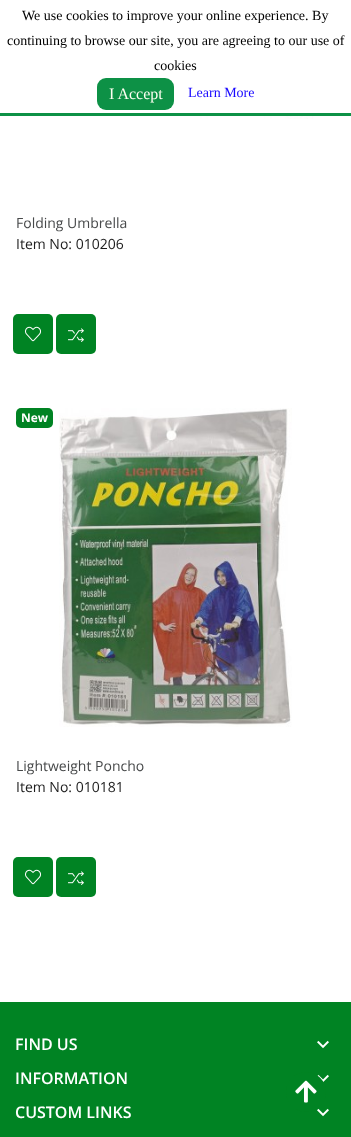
<svg xmlns="http://www.w3.org/2000/svg" width="351" height="1137">
	<rect width="100%" height="100%" fill="#FFFFFF" />
	<rect x="0" y="113" width="351" height="3" fill="#0D9146" />
	<g font-family="Liberation Serif" font-size="14" fill="#000000">
		<text x="22" y="20">We use cookies to improve your online experience. By</text>
		<text x="7" y="45">continuing to browse our site, you are agreeing to our use of</text>
		<text x="154" y="70">cookies</text>
	</g>
	<rect x="97" y="78" width="77" height="32" rx="9" fill="#0D9146" />
	<text x="109" y="99" font-family="Liberation Serif" font-size="16" fill="#FFFFF2">I Accept</text>
	<text x="188" y="97" font-family="Liberation Serif" font-size="14" fill="#1808FF">Learn More</text>
	<image x="16" y="116" width="304" height="3" href="assets/img1.png" />
	<text x="16" y="228" font-family="Open Sans" font-size="14" fill="#47494A">Folding Umbrella</text>
	<text x="16" y="249" font-family="Open Sans" font-size="14" fill="#1D1D1D">Item No: 010206</text>
	<rect x="13" y="314" width="40" height="40" rx="5" fill="#008323" />
	<image x="25" y="326" width="16" height="16" href="assets/img2.png" />
	<rect x="56" y="314" width="40" height="40" rx="5" fill="#008323" />
	<image x="68" y="328" width="16" height="14" href="assets/img3.png" />
	<rect x="16" y="408" width="37" height="20" rx="5" fill="#008323" />
	<text x="21" y="422" font-family="Open Sans" font-size="12" font-weight="700" fill="#FFFFFF">New</text>
	<image x="59" y="408" width="233" height="319" href="assets/img4.png" />
	<text x="16" y="771" font-family="Open Sans" font-size="14" fill="#47494A">Lightweight Poncho</text>
	<text x="16" y="792" font-family="Open Sans" font-size="14" fill="#1D1D1D">Item No: 010181</text>
	<rect x="13" y="857" width="40" height="40" rx="5" fill="#008323" />
	<image x="25" y="869" width="16" height="16" href="assets/img2.png" />
	<rect x="56" y="857" width="40" height="40" rx="5" fill="#008323" />
	<image x="68" y="871" width="16" height="14" href="assets/img3.png" />
	<rect x="0" y="1002" width="351" height="135" fill="#008323" />
	<text x="15" y="1050" font-family="Open Sans" font-size="16" font-weight="600" fill="#FFFFFF">FIND US</text>
	<image x="317" y="1040" width="12" height="9" href="assets/img5.png" />
	<text x="15" y="1084" font-family="Open Sans" font-size="16" font-weight="600" fill="#FFFFFF">INFORMATION</text>
	<image x="317" y="1074" width="12" height="9" href="assets/img5.png" />
	<text x="15" y="1118" font-family="Open Sans" font-size="16" font-weight="600" fill="#FFFFFF">CUSTOM LINKS</text>
	<image x="317" y="1108" width="12" height="9" href="assets/img5.png" />
	<circle cx="306" cy="1092" r="20" fill="#008323" />
	<image x="295" y="1080" width="22" height="23" href="assets/img6.png" />
</svg>
